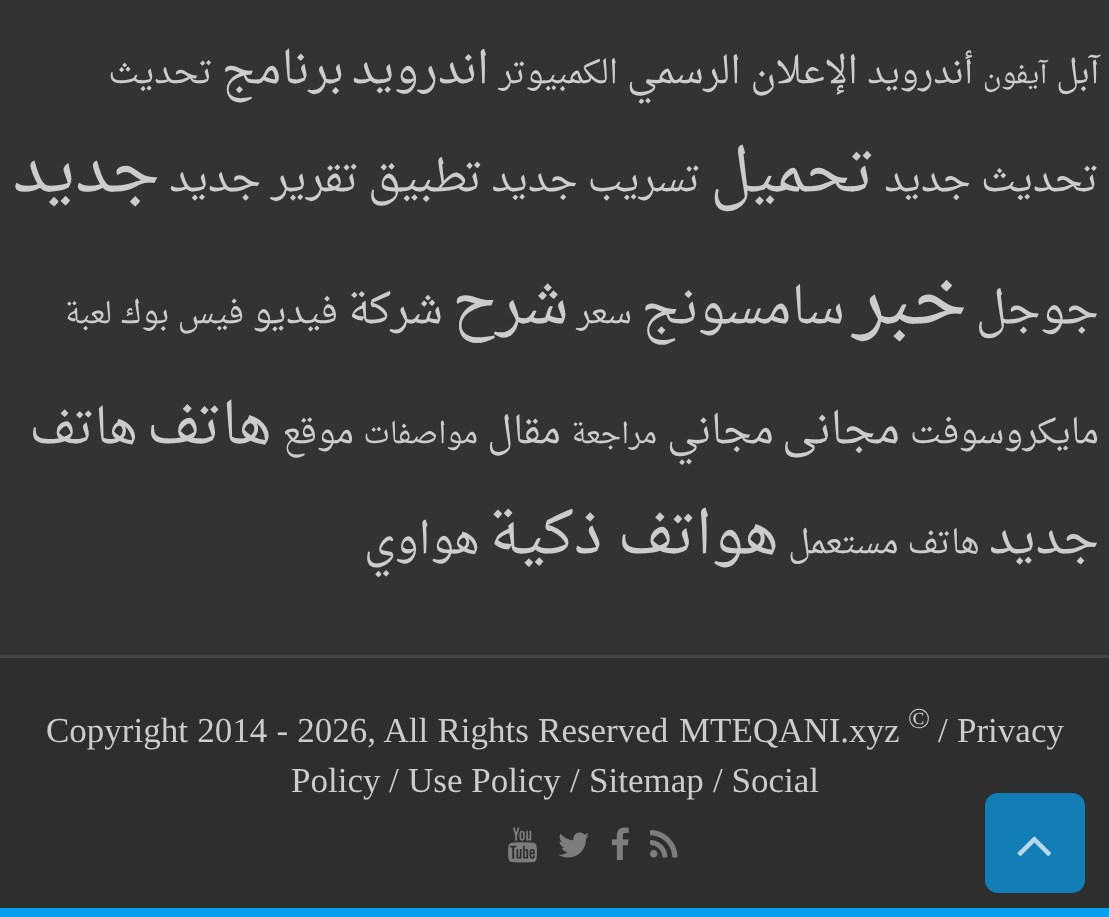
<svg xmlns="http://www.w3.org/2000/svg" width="1109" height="917">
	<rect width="100%" height="100%" fill="#333333" />
	<text x="1099" y="83" font-family="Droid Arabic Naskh" font-size="33" direction="rtl" fill="#CCCCCC">آبل</text>
	<text x="1047" y="83" font-family="Droid Arabic Naskh" font-size="27" direction="rtl" fill="#CCCCCC">آيفون</text>
	<text x="973" y="83" font-family="Droid Arabic Naskh" font-size="34" direction="rtl" fill="#CCCCCC">أندرويد</text>
	<text x="858" y="83" font-family="Droid Arabic Naskh" font-size="37.25" direction="rtl" fill="#CCCCCC">الإعلان الرسمي</text>
	<text x="618" y="83" font-family="Droid Arabic Naskh" font-size="32" direction="rtl" fill="#CCCCCC">الكمبيوتر</text>
	<text x="489" y="83" font-family="Droid Arabic Naskh" font-size="44" direction="rtl" fill="#CCCCCC">اندرويد</text>
	<text x="344" y="83" font-family="Droid Arabic Naskh" font-size="44.5" direction="rtl" fill="#CCCCCC">برنامج</text>
	<text x="213" y="83" font-family="Droid Arabic Naskh" font-size="34" direction="rtl" fill="#CCCCCC">تحديث</text>
	<text x="1099" y="191" font-family="Droid Arabic Naskh" font-size="38.25" direction="rtl" fill="#CCCCCC">تحديث جديد</text>
	<text x="875" y="191" font-family="Droid Arabic Naskh" font-size="59.5" direction="rtl" fill="#CCCCCC">تحميل</text>
	<text x="701" y="191" font-family="Droid Arabic Naskh" font-size="38" direction="rtl" fill="#CCCCCC">تسريب جديد</text>
	<text x="483" y="191" font-family="Droid Arabic Naskh" font-size="43.5" direction="rtl" fill="#CCCCCC">تطبيق</text>
	<text x="359" y="191" font-family="Droid Arabic Naskh" font-size="40.5" direction="rtl" fill="#CCCCCC">تقرير جديد</text>
	<text x="160" y="191" font-family="Droid Arabic Naskh" font-size="65" direction="rtl" fill="#CCCCCC">جديد</text>
	<text x="1099" y="323" font-family="Droid Arabic Naskh" font-size="45" direction="rtl" fill="#CCCCCC">جوجل</text>
	<text x="967" y="323" font-family="Droid Arabic Naskh" font-size="73" direction="rtl" fill="#CCCCCC">خبر</text>
	<text x="845" y="323" font-family="Droid Arabic Naskh" font-size="50" direction="rtl" fill="#CCCCCC">سامسونج</text>
	<text x="632" y="323" font-family="Droid Arabic Naskh" font-size="32" direction="rtl" fill="#CCCCCC">سعر</text>
	<text x="569" y="323" font-family="Droid Arabic Naskh" font-size="59" direction="rtl" fill="#CCCCCC">شرح</text>
	<text x="443" y="323" font-family="Droid Arabic Naskh" font-size="42" direction="rtl" fill="#CCCCCC">شركة</text>
	<text x="338" y="323" font-family="Droid Arabic Naskh" font-size="35" direction="rtl" fill="#CCCCCC">فيديو</text>
	<text x="244" y="323" font-family="Droid Arabic Naskh" font-size="31.5" direction="rtl" fill="#CCCCCC">فيس بوك</text>
	<text x="112" y="323" font-family="Droid Arabic Naskh" font-size="29" direction="rtl" fill="#CCCCCC">لعبة</text>
	<text x="1099" y="443" font-family="Droid Arabic Naskh" font-size="34" direction="rtl" fill="#CCCCCC">مايكروسوفت</text>
	<text x="900" y="443" font-family="Droid Arabic Naskh" font-size="43" direction="rtl" fill="#CCCCCC">مجانى</text>
	<text x="774" y="443" font-family="Droid Arabic Naskh" font-size="39" direction="rtl" fill="#CCCCCC">مجاني</text>
	<text x="657" y="443" font-family="Droid Arabic Naskh" font-size="28" direction="rtl" fill="#CCCCCC">مراجعة</text>
	<text x="561" y="443" font-family="Droid Arabic Naskh" font-size="37.25" direction="rtl" fill="#CCCCCC">مقال</text>
	<text x="478" y="443" font-family="Droid Arabic Naskh" font-size="29" direction="rtl" fill="#CCCCCC">مواصفات</text>
	<text x="354" y="443" font-family="Droid Arabic Naskh" font-size="34" direction="rtl" fill="#CCCCCC">موقع</text>
	<text x="272" y="443" font-family="Droid Arabic Naskh" font-size="56" direction="rtl" fill="#CCCCCC">هاتف</text>
	<g font-family="Droid Arabic Naskh" font-size="48.5" direction="rtl" fill="#CCCCCC">
		<text x="138" y="443">هاتف</text>
		<text x="1099" y="553">جديد</text>
	</g>
	<text x="980" y="553" font-family="Droid Arabic Naskh" font-size="32.5" direction="rtl" fill="#CCCCCC">هاتف مستعمل</text>
	<text x="779" y="553" font-family="Droid Arabic Naskh" font-size="58.25" direction="rtl" fill="#CCCCCC">هواتف ذكية</text>
	<text x="480" y="553" font-family="Droid Arabic Naskh" font-size="43" direction="rtl" fill="#CCCCCC">هواوي</text>
	<rect x="0" y="658" width="1109" height="250" fill="#2E2E2E" />
	<rect x="0" y="655" width="1109" height="3" fill="#444444" />
	<g font-family="Liberation Serif" font-size="35" fill="#CCCCCC">
		<text x="957" y="742">Privacy</text>
		<text x="938" y="742">/</text>
	</g>
	<text x="908" y="728" font-family="Liberation Serif" font-size="29" fill="#CCCCCC">©</text>
	<g font-family="Liberation Serif" font-size="35" fill="#CCCCCC">
		<text x="679" y="742">MTEQANI.xyz</text>
		<text x="46" y="742" word-spacing="0.5">Copyright 2014 - 2026, All Rights Reserved</text>
		<text x="713" y="792">/ Social</text>
		<text x="589" y="792">Sitemap</text>
		<text x="570" y="792">/</text>
		<text x="408" y="792">Use Policy</text>
		<text x="389" y="792">/</text>
		<text x="291" y="792">Policy</text>
	</g>
	<image x="650" y="830" width="28" height="28" href="assets/img1.png" />
	<image x="611" y="827" width="18" height="33" href="assets/img2.png" />
	<image x="558" y="832" width="31" height="26" href="assets/img3.png" />
	<image x="508" y="827" width="29" height="36" href="assets/img4.png" />
	<rect x="985" y="793" width="100" height="100" rx="13" fill="#137DB6" />
	<image x="1017" y="836" width="34" height="20" href="assets/img5.png" />
	<rect x="0" y="908" width="1109" height="9" fill="#089FF0" />
</svg>
